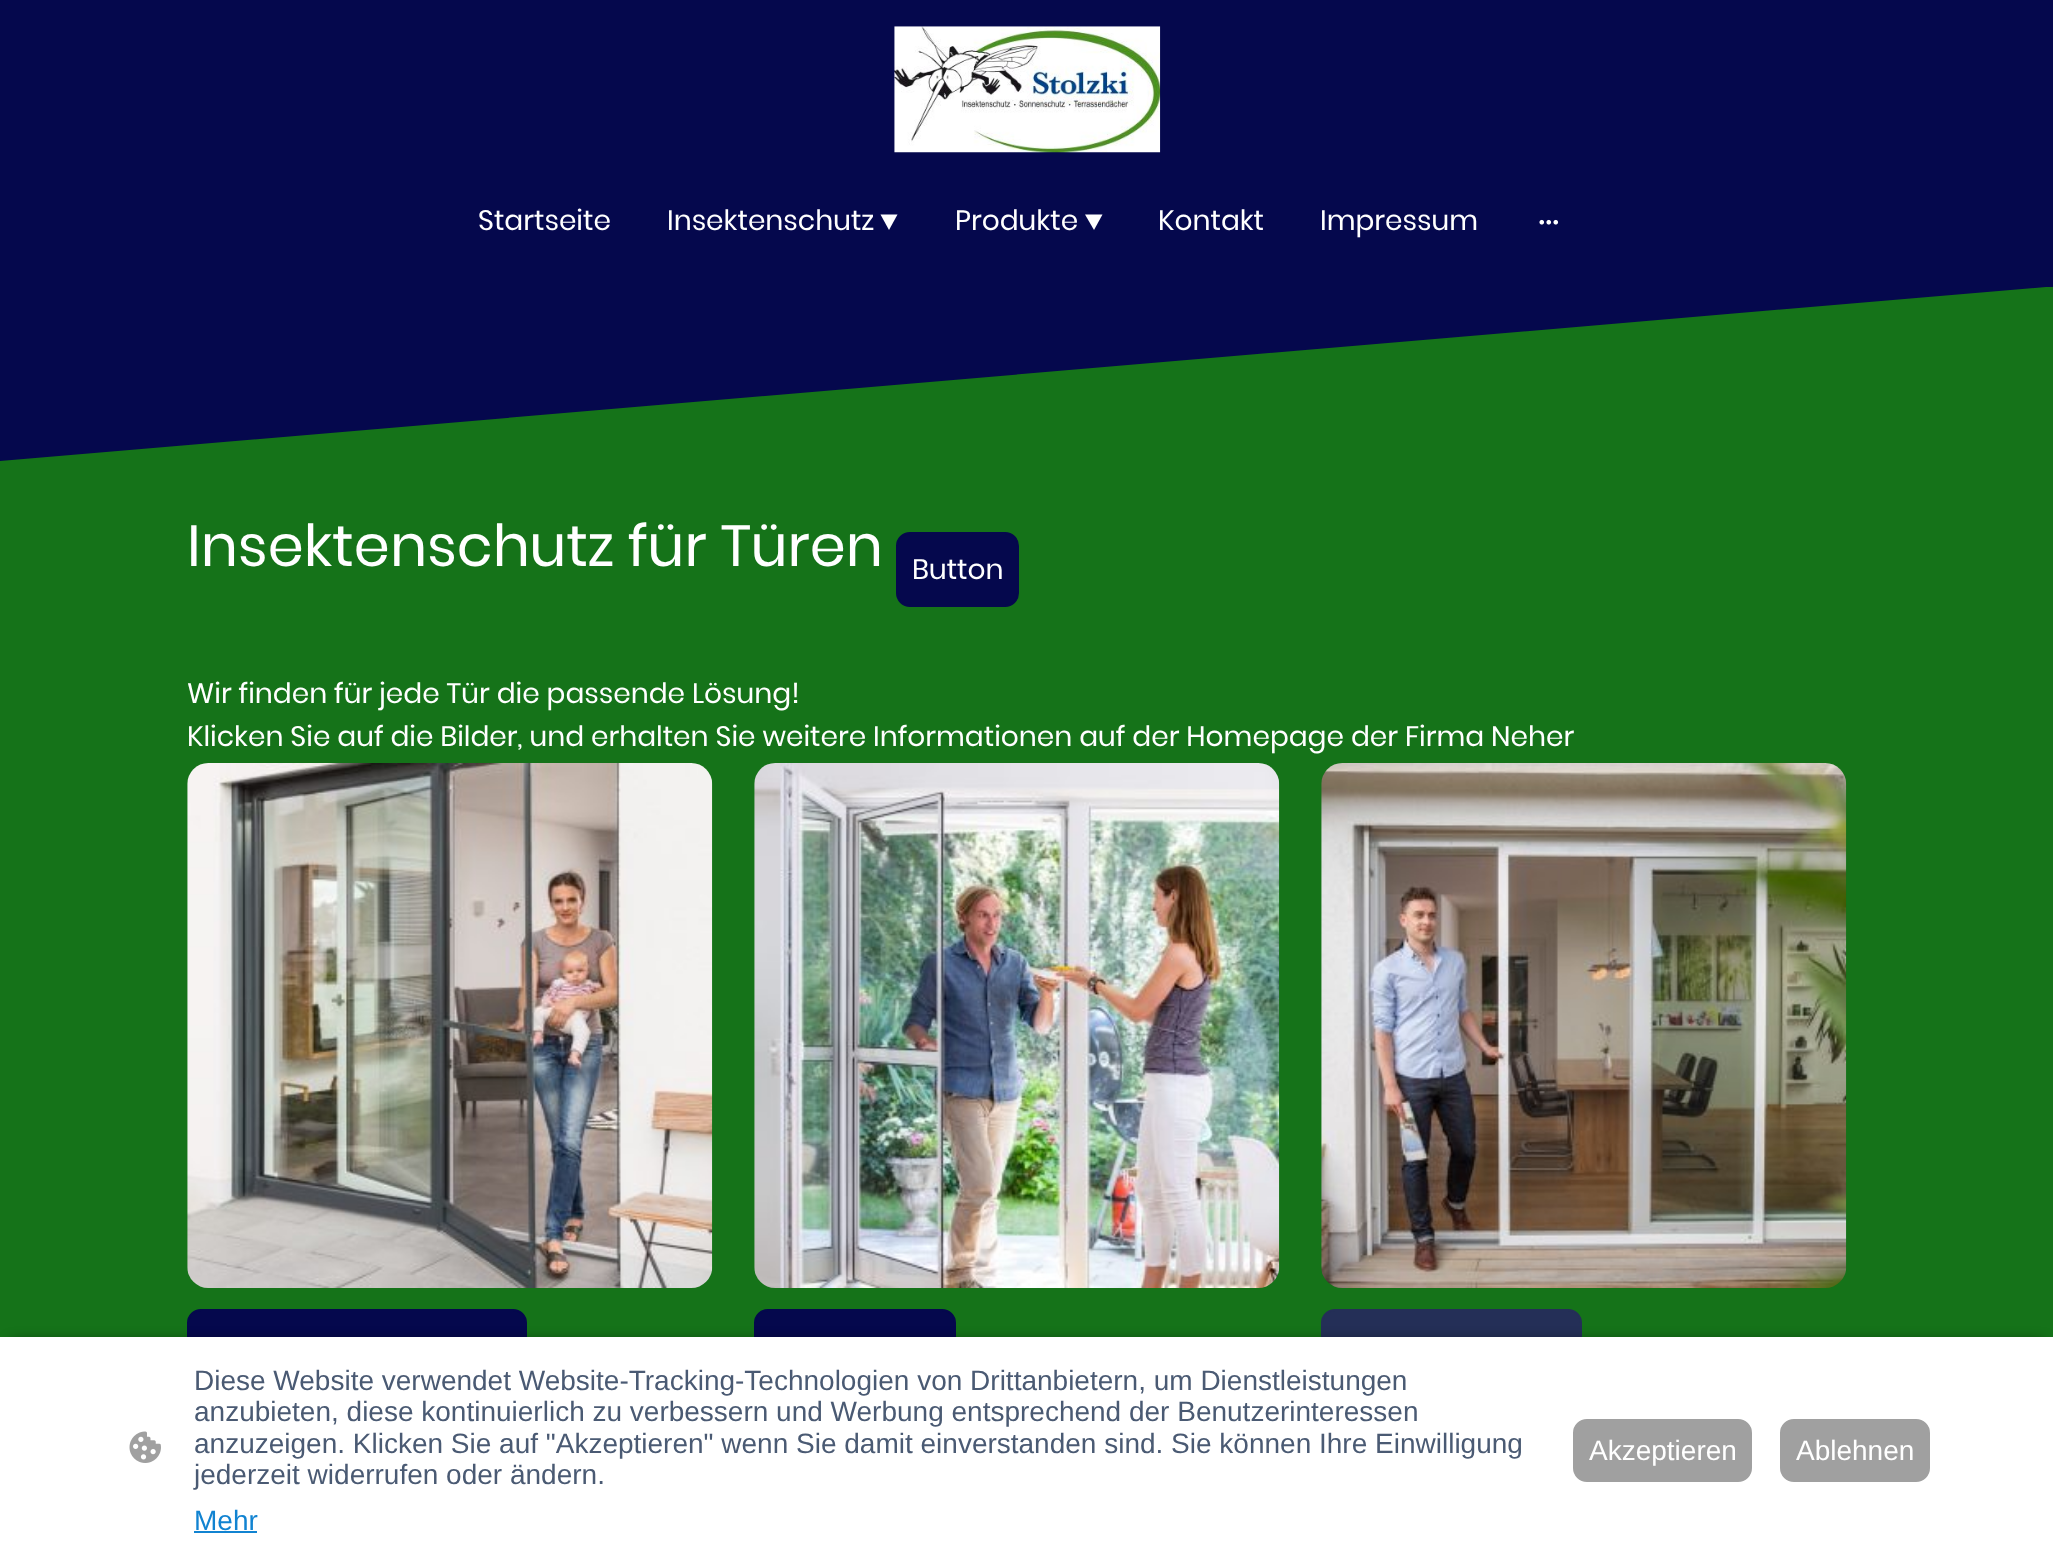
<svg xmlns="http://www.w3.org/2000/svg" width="2053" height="1564">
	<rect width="100%" height="100%" fill="#05084D" />
	<image x="894" y="26" width="267" height="127" href="assets/img1.png" />
	<g font-family="Poppins" font-size="28" fill="#FFFFFF">
		<text x="478" y="230">Startseite</text>
		<text x="667" y="230">Insektenschutz</text>
	</g>
	<path d="M897.5 214.5L889 230L880.5 214.5Z" fill="#FFFFFF" />
	<text x="955" y="230" font-family="Poppins" font-size="28" fill="#FFFFFF">Produkte</text>
	<path d="M1102.5 214.5L1094 230L1085 214.5Z" fill="#FFFFFF" />
	<g font-family="Poppins" font-size="28" fill="#FFFFFF">
		<text x="1158" y="230">Kontakt</text>
		<text x="1320" y="230">Impressum</text>
	</g>
	<image x="1539" y="219" width="20" height="6" href="assets/img2.png" />
	<path d="M0 461V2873H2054V287H2046Z" fill="#157319" />
	<text x="187" y="566" font-family="Poppins" font-size="57.75" fill="#FFFFFF">Insektenschutz für Türen</text>
	<rect x="897" y="533" width="121" height="73" rx="13" fill="#05084D" stroke="#05084D" stroke-width="2" />
	<g font-family="Poppins" font-size="28" fill="#FFFFFF">
		<text x="912" y="579">Button</text>
		<text x="187" y="703">Wir finden für jede Tür die passende Lösung!</text>
		<text x="187" y="746">Klicken Sie auf die Bilder, und erhalten Sie weitere Informationen auf der Homepage der Firma Neher</text>
	</g>
	<image x="187" y="763" width="526" height="525" href="assets/img3.png" />
	<rect x="188" y="1310" width="338" height="73" rx="13" fill="#05084D" stroke="#05084D" stroke-width="2" />
	<image x="754" y="763" width="526" height="525" href="assets/img4.png" />
	<image x="1321" y="763" width="526" height="525" href="assets/img5.png" />
	<rect x="1322" y="1310" width="259" height="73" rx="13" fill="#242F57" stroke="#242F57" stroke-width="2" />
	<rect x="755" y="1310" width="200" height="73" rx="13" fill="#05084D" stroke="#05084D" stroke-width="2" />
	<rect x="11" y="1342" width="2033" height="207" fill="#000000" fill-opacity="0.63" filter="blur(7px)" />
	<rect x="0" y="1337" width="2053" height="227" fill="#FFFFFF" />
	<image x="129" y="1431" width="32" height="32" href="assets/img6.png" />
	<g font-family="Liberation Sans" font-size="28" fill="#4A5A73">
		<text x="194" y="1390">Diese Website verwendet Website-Tracking-Technologien von Drittanbietern, um Dienstleistungen</text>
		<text x="194" y="1421">anzubieten, diese kontinuierlich zu verbessern und Werbung entsprechend der Benutzerinteressen</text>
		<text x="194" y="1453">anzuzeigen. Klicken Sie auf "Akzeptieren" wenn Sie damit einverstanden sind. Sie können Ihre Einwilligung</text>
		<text x="194" y="1484">jederzeit widerrufen oder ändern.</text>
	</g>
	<text x="194" y="1530" font-family="Liberation Sans" font-size="28" fill="#1183D1">Mehr</text>
	<rect x="194" y="1531" width="63" height="2" fill="#1183D1" />
	<rect x="1574" y="1420" width="177" height="61" rx="13" fill="#A0A0A0" stroke="#A0A0A0" stroke-width="2" />
	<text x="1589" y="1460" font-family="Liberation Sans" font-size="28" fill="#FFFFFF">Akzeptieren</text>
	<rect x="1781" y="1420" width="148" height="61" rx="13" fill="#A0A0A0" stroke="#A0A0A0" stroke-width="2" />
	<text x="1796" y="1460" font-family="Liberation Sans" font-size="28" fill="#FFFFFF">Ablehnen</text>
</svg>
